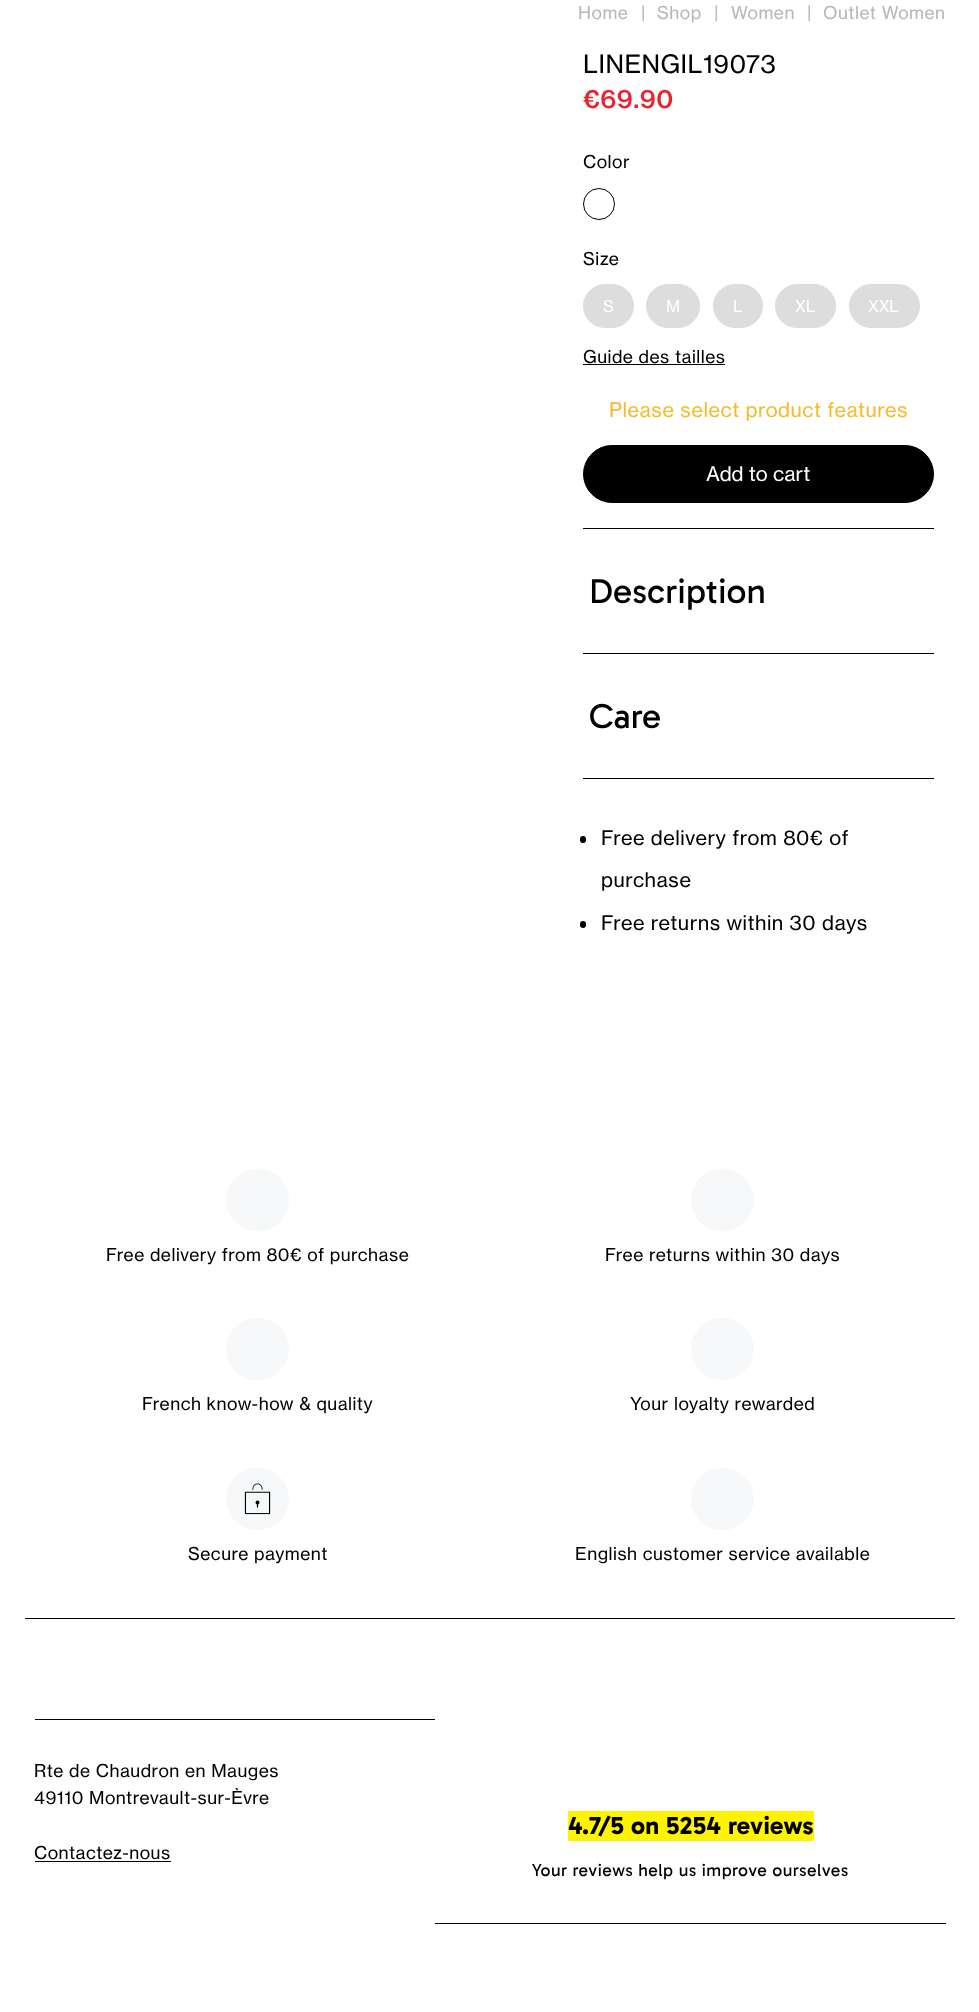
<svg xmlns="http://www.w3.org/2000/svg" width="979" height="2012">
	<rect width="100%" height="100%" fill="#FFFFFF" />
	<g font-family="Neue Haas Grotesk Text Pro" font-size="17.5" letter-spacing="0.5" fill="#B7B7B7">
		<text x="578" y="19">Home</text>
		<text x="641" y="19">|</text>
		<text x="657" y="19">Shop</text>
		<text x="714" y="19">|</text>
		<text x="731" y="19">Women</text>
		<text x="807" y="19">|</text>
		<text x="823" y="19">Outlet Women</text>
	</g>
	<text x="583" y="73" font-family="Neue Haas Grotesk Text Pro" font-size="25" letter-spacing="0.5" fill="#000000">LINENGIL19073</text>
	<text x="583" y="108" font-family="Neue Haas Grotesk Text Pro" font-size="25" font-weight="500" letter-spacing="0.5" fill="#E8242E">€69.90</text>
	<text x="583" y="168" font-family="Neue Haas Grotesk Text Pro" font-size="17.5" letter-spacing="0.5" fill="#000000">Color</text>
	<circle cx="599" cy="204" r="15.5" fill="none" stroke="#000000" />
	<text x="583" y="265" font-family="Neue Haas Grotesk Text Pro" font-size="17.5" letter-spacing="0.5" fill="#000000">Size</text>
	<rect x="583.5" y="284.5" width="50" height="43" rx="21.5" fill="#DDDDDD" stroke="#DDDDDD" />
	<text x="603" y="312" font-family="Neue Haas Grotesk Text Pro" font-size="16" fill="#FFFFFF">S</text>
	<rect x="646.5" y="284.5" width="53" height="43" rx="21.5" fill="#DDDDDD" stroke="#DDDDDD" />
	<text x="666" y="312" font-family="Neue Haas Grotesk Text Pro" font-size="16" fill="#FFFFFF">M</text>
	<rect x="713.5" y="284.5" width="49" height="43" rx="21.5" fill="#DDDDDD" stroke="#DDDDDD" />
	<text x="733" y="312" font-family="Neue Haas Grotesk Text Pro" font-size="16" fill="#FFFFFF">L</text>
	<rect x="775.5" y="284.5" width="60" height="43" rx="21.5" fill="#DDDDDD" stroke="#DDDDDD" />
	<text x="795" y="312" font-family="Neue Haas Grotesk Text Pro" font-size="16" fill="#FFFFFF">XL</text>
	<rect x="849.5" y="284.5" width="70" height="43" rx="21.5" fill="#DDDDDD" stroke="#DDDDDD" />
	<text x="868" y="312" font-family="Neue Haas Grotesk Text Pro" font-size="16" fill="#FFFFFF">XXL</text>
	<text x="583" y="363" font-family="Neue Haas Grotesk Text Pro" font-size="17.5" letter-spacing="0.5" fill="#000000">Guide des tailles</text>
	<rect x="583" y="364" width="142" height="1" fill="#000000" />
	<text x="609" y="417" font-family="Neue Haas Grotesk Text Pro" font-size="20" letter-spacing="0.5" fill="#F7BA2D">Please select product features</text>
	<rect x="583.5" y="445.5" width="350" height="57" rx="28.5" fill="#000000" stroke="#000000" />
	<text x="706" y="481" font-family="Neue Haas Grotesk Text Pro" font-size="20" fill="#FFFFFF">Add to cart</text>
	<rect x="583" y="528" width="351" height="1" fill="#000000" />
	<rect x="583" y="653" width="351" height="1" fill="#000000" />
	<text x="589" y="603" font-family="Gabarito" font-size="35" letter-spacing="0.25" fill="#000000">Description</text>
	<rect x="583" y="778" width="351" height="1" fill="#000000" />
	<text x="589" y="728" font-family="Gabarito" font-size="35" letter-spacing="0.25" fill="#000000">Care</text>
	<rect x="580" y="836" width="6" height="7" rx="3" fill="#000000" />
	<g font-family="Neue Haas Grotesk Text Pro" font-size="20" letter-spacing="0.5" fill="#000000">
		<text x="601" y="845">Free delivery from 80€ of</text>
		<text x="601" y="887">purchase</text>
	</g>
	<rect x="580" y="921" width="6" height="7" rx="3" fill="#000000" />
	<text x="601" y="930" font-family="Neue Haas Grotesk Text Pro" font-size="20" letter-spacing="0.5" fill="#000000">Free returns within 30 days</text>
	<rect x="226" y="1169" width="63" height="62" rx="31" fill="#F7F8F9" />
	<text x="106" y="1261" font-family="Neue Haas Grotesk Text Pro" font-size="17.5" letter-spacing="0.5" fill="#000000">Free delivery from 80€ of purchase</text>
	<rect x="691" y="1169" width="63" height="62" rx="31" fill="#F7F8F9" />
	<text x="605" y="1261" font-family="Neue Haas Grotesk Text Pro" font-size="17.5" letter-spacing="0.5" fill="#000000">Free returns within 30 days</text>
	<rect x="226" y="1318" width="63" height="62" rx="31" fill="#F7F8F9" />
	<text x="142" y="1410" font-family="Neue Haas Grotesk Text Pro" font-size="17.5" letter-spacing="0.5" fill="#000000">French know-how &amp; quality</text>
	<rect x="691" y="1318" width="63" height="62" rx="31" fill="#F7F8F9" />
	<text x="630" y="1410" font-family="Neue Haas Grotesk Text Pro" font-size="17.5" letter-spacing="0.5" fill="#000000">Your loyalty rewarded</text>
	<rect x="226" y="1468" width="63" height="62" rx="31" fill="#F7F8F9" />
	<image x="244" y="1483" width="27" height="32" href="assets/img1.png" />
	<text x="188" y="1560" font-family="Neue Haas Grotesk Text Pro" font-size="17.5" letter-spacing="0.5" fill="#000000">Secure payment</text>
	<rect x="691" y="1468" width="63" height="62" rx="31" fill="#F7F8F9" />
	<text x="575" y="1560" font-family="Neue Haas Grotesk Text Pro" font-size="17.5" letter-spacing="0.5" fill="#000000">English customer service available</text>
	<rect x="25" y="1618" width="930" height="1" fill="#000000" />
	<rect x="35" y="1719" width="400" height="1" fill="#000000" />
	<g font-family="Neue Haas Grotesk Text Pro" font-size="17.5" letter-spacing="0.5" fill="#000000">
		<text x="34" y="1777">Rte de Chaudron en Mauges</text>
		<text x="34" y="1804">49110 Montrevault-sur-Èvre</text>
		<text x="34" y="1859">Contactez-nous</text>
	</g>
	<rect x="35" y="1861" width="136" height="1" fill="#000000" />
	<rect x="435" y="1923" width="511" height="1" fill="#000000" />
	<rect x="568" y="1811" width="246" height="30" fill="#FFF300" />
	<text x="568" y="1834" font-family="Gabarito" font-size="25" font-weight="700" letter-spacing="0.25" fill="#000000">4.7/5 on 5254 reviews</text>
	<text x="532" y="1876" font-family="Gabarito" font-size="17.5" letter-spacing="0.5" fill="#000000">Your reviews help us improve ourselves</text>
</svg>
